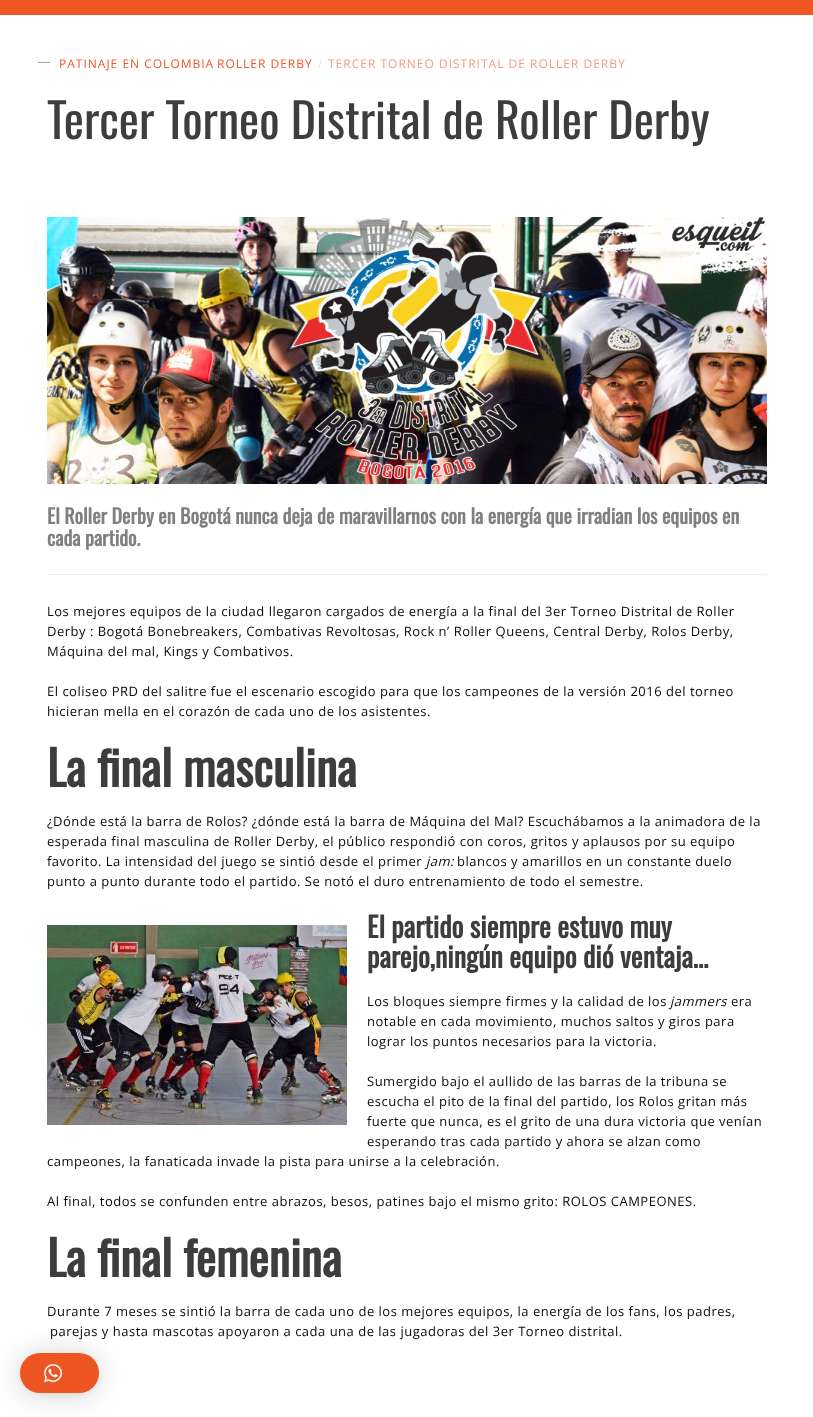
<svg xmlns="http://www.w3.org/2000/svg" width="813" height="1417">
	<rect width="100%" height="100%" fill="#FFFFFF" />
	<rect x="0" y="0" width="813" height="15" fill="#EE5623" />
	<rect x="38" y="62" width="12" height="1" fill="#A4A4A4" />
	<g font-family="Open Sans" font-size="12" letter-spacing="1" fill="#EE5623">
		<text x="59" y="68">PATINAJE EN COLOMBIA</text>
		<text x="217" y="68">ROLLER DERBY</text>
	</g>
	<text x="318" y="68" font-family="Open Sans" font-size="12" letter-spacing="1" fill="#E4E4E4">/</text>
	<text x="328" y="68" font-family="Open Sans" font-size="12" letter-spacing="1" fill="#F59A7B">TERCER TORNEO DISTRITAL DE ROLLER DERBY</text>
	<text x="47" y="139" font-family="Oswald" font-size="48" fill="#3D3D3D">Tercer Torneo Distrital de Roller Derby</text>
	<image x="47" y="217" width="720" height="267" href="assets/img1.png" />
	<g font-family="Oswald" font-size="20" font-weight="700" fill="#808080">
		<text x="47" y="524">El Roller Derby en Bogotá nunca deja de maravillarnos con la energía que irradian los equipos en</text>
		<text x="47" y="546">cada partido.</text>
	</g>
	<rect x="47" y="574" width="720" height="1" fill="#EEEEEE" />
	<g font-family="Open Sans" font-size="13" letter-spacing="0.5" fill="#0A0A0A">
		<text x="47" y="616">Los mejores equipos de la ciudad llegaron cargados de energía a la final del 3er Torneo Distrital de Roller</text>
		<text x="47" y="636">Derby : Bogotá Bonebreakers, Combativas Revoltosas, Rock n’ Roller Queens, Central Derby, Rolos Derby,</text>
		<text x="47" y="656">Máquina del mal, Kings y Combativos.</text>
		<text x="47" y="696">El coliseo PRD del salitre fue el escenario escogido para que los campeones de la versión 2016 del torneo</text>
		<text x="47" y="716">hicieran mella en el corazón de cada uno de los asistentes.</text>
	</g>
	<text x="47" y="787" font-family="Oswald" font-size="48" font-weight="700" fill="#3D3D3D">La final masculina</text>
	<g font-family="Open Sans" font-size="13" letter-spacing="0.5" fill="#0A0A0A">
		<text x="47" y="826">¿Dónde está la barra de Rolos? ¿dónde está la barra de Máquina del Mal? Escuchábamos a la animadora de la</text>
		<text x="47" y="846">esperada final masculina de Roller Derby, el público respondió con coros, gritos y aplausos por su equipo</text>
		<text x="47" y="866">favorito. La intensidad del juego se sintió desde el primer</text>
	</g>
	<text x="426" y="866" font-family="Open Sans" font-size="13" font-style="italic" letter-spacing="0.5" fill="#0A0A0A">jam:</text>
	<g font-family="Open Sans" font-size="13" letter-spacing="0.5" fill="#0A0A0A">
		<text x="457" y="866">blancos y amarillos en un constante duelo</text>
		<text x="47" y="886">punto a punto durante todo el partido. Se notó el duro entrenamiento de todo el semestre.</text>
	</g>
	<image x="47" y="925" width="300" height="200" href="assets/img2.png" />
	<g font-family="Oswald" font-size="28" font-weight="700" fill="#3D3D3D">
		<text x="367" y="938">El partido siempre estuvo muy</text>
		<text x="367" y="968">parejo,ningún equipo dió ventaja…</text>
	</g>
	<text x="367" y="1006" font-family="Open Sans" font-size="13" letter-spacing="0.5" fill="#0A0A0A">Los bloques siempre firmes y la calidad de los</text>
	<text x="670" y="1006" font-family="Open Sans" font-size="13" font-style="italic" letter-spacing="0.5" fill="#0A0A0A">jammers</text>
	<g font-family="Open Sans" font-size="13" letter-spacing="0.5" fill="#0A0A0A">
		<text x="731" y="1006">era</text>
		<text x="367" y="1026">notable en cada movimiento, muchos saltos y giros para</text>
		<text x="367" y="1046">lograr los puntos necesarios para la victoria.</text>
		<text x="367" y="1086">Sumergido bajo el aullido de las barras de la tribuna se</text>
		<text x="367" y="1106">escucha el pito de la final del partido, los Rolos gritan más</text>
		<text x="367" y="1126">fuerte que nunca, es el grito de una dura victoria que venían</text>
		<text x="367" y="1146">esperando tras cada partido y ahora se alzan como</text>
		<text x="47" y="1166">campeones, la fanaticada invade la pista para unirse a la celebración.</text>
		<text x="47" y="1206">Al final, todos se confunden entre abrazos, besos, patines bajo el mismo grito: ROLOS CAMPEONES.</text>
	</g>
	<text x="47" y="1277" font-family="Oswald" font-size="48" font-weight="700" fill="#3D3D3D">La final femenina</text>
	<g font-family="Open Sans" font-size="13" letter-spacing="0.5" fill="#0A0A0A">
		<text x="47" y="1316">Durante 7 meses se sintió la barra de cada uno de los mejores equipos, la energía de los fans, los padres,</text>
		<text x="50" y="1336">parejas y hasta mascotas apoyaron a cada una de las jugadoras del 3er Torneo distrital.</text>
	</g>
	<rect x="20" y="1355" width="79" height="40" rx="20" fill="#000000" fill-opacity="0.16" filter="blur(16px)" />
	<rect x="20" y="1354" width="79" height="40" rx="20" fill="#000000" fill-opacity="0.06" filter="blur(3px)" />
	<rect x="20" y="1353" width="79" height="40" rx="20" fill="#ED5523" />
	<image x="44" y="1364" width="18" height="19" href="assets/img3.png" />
</svg>
